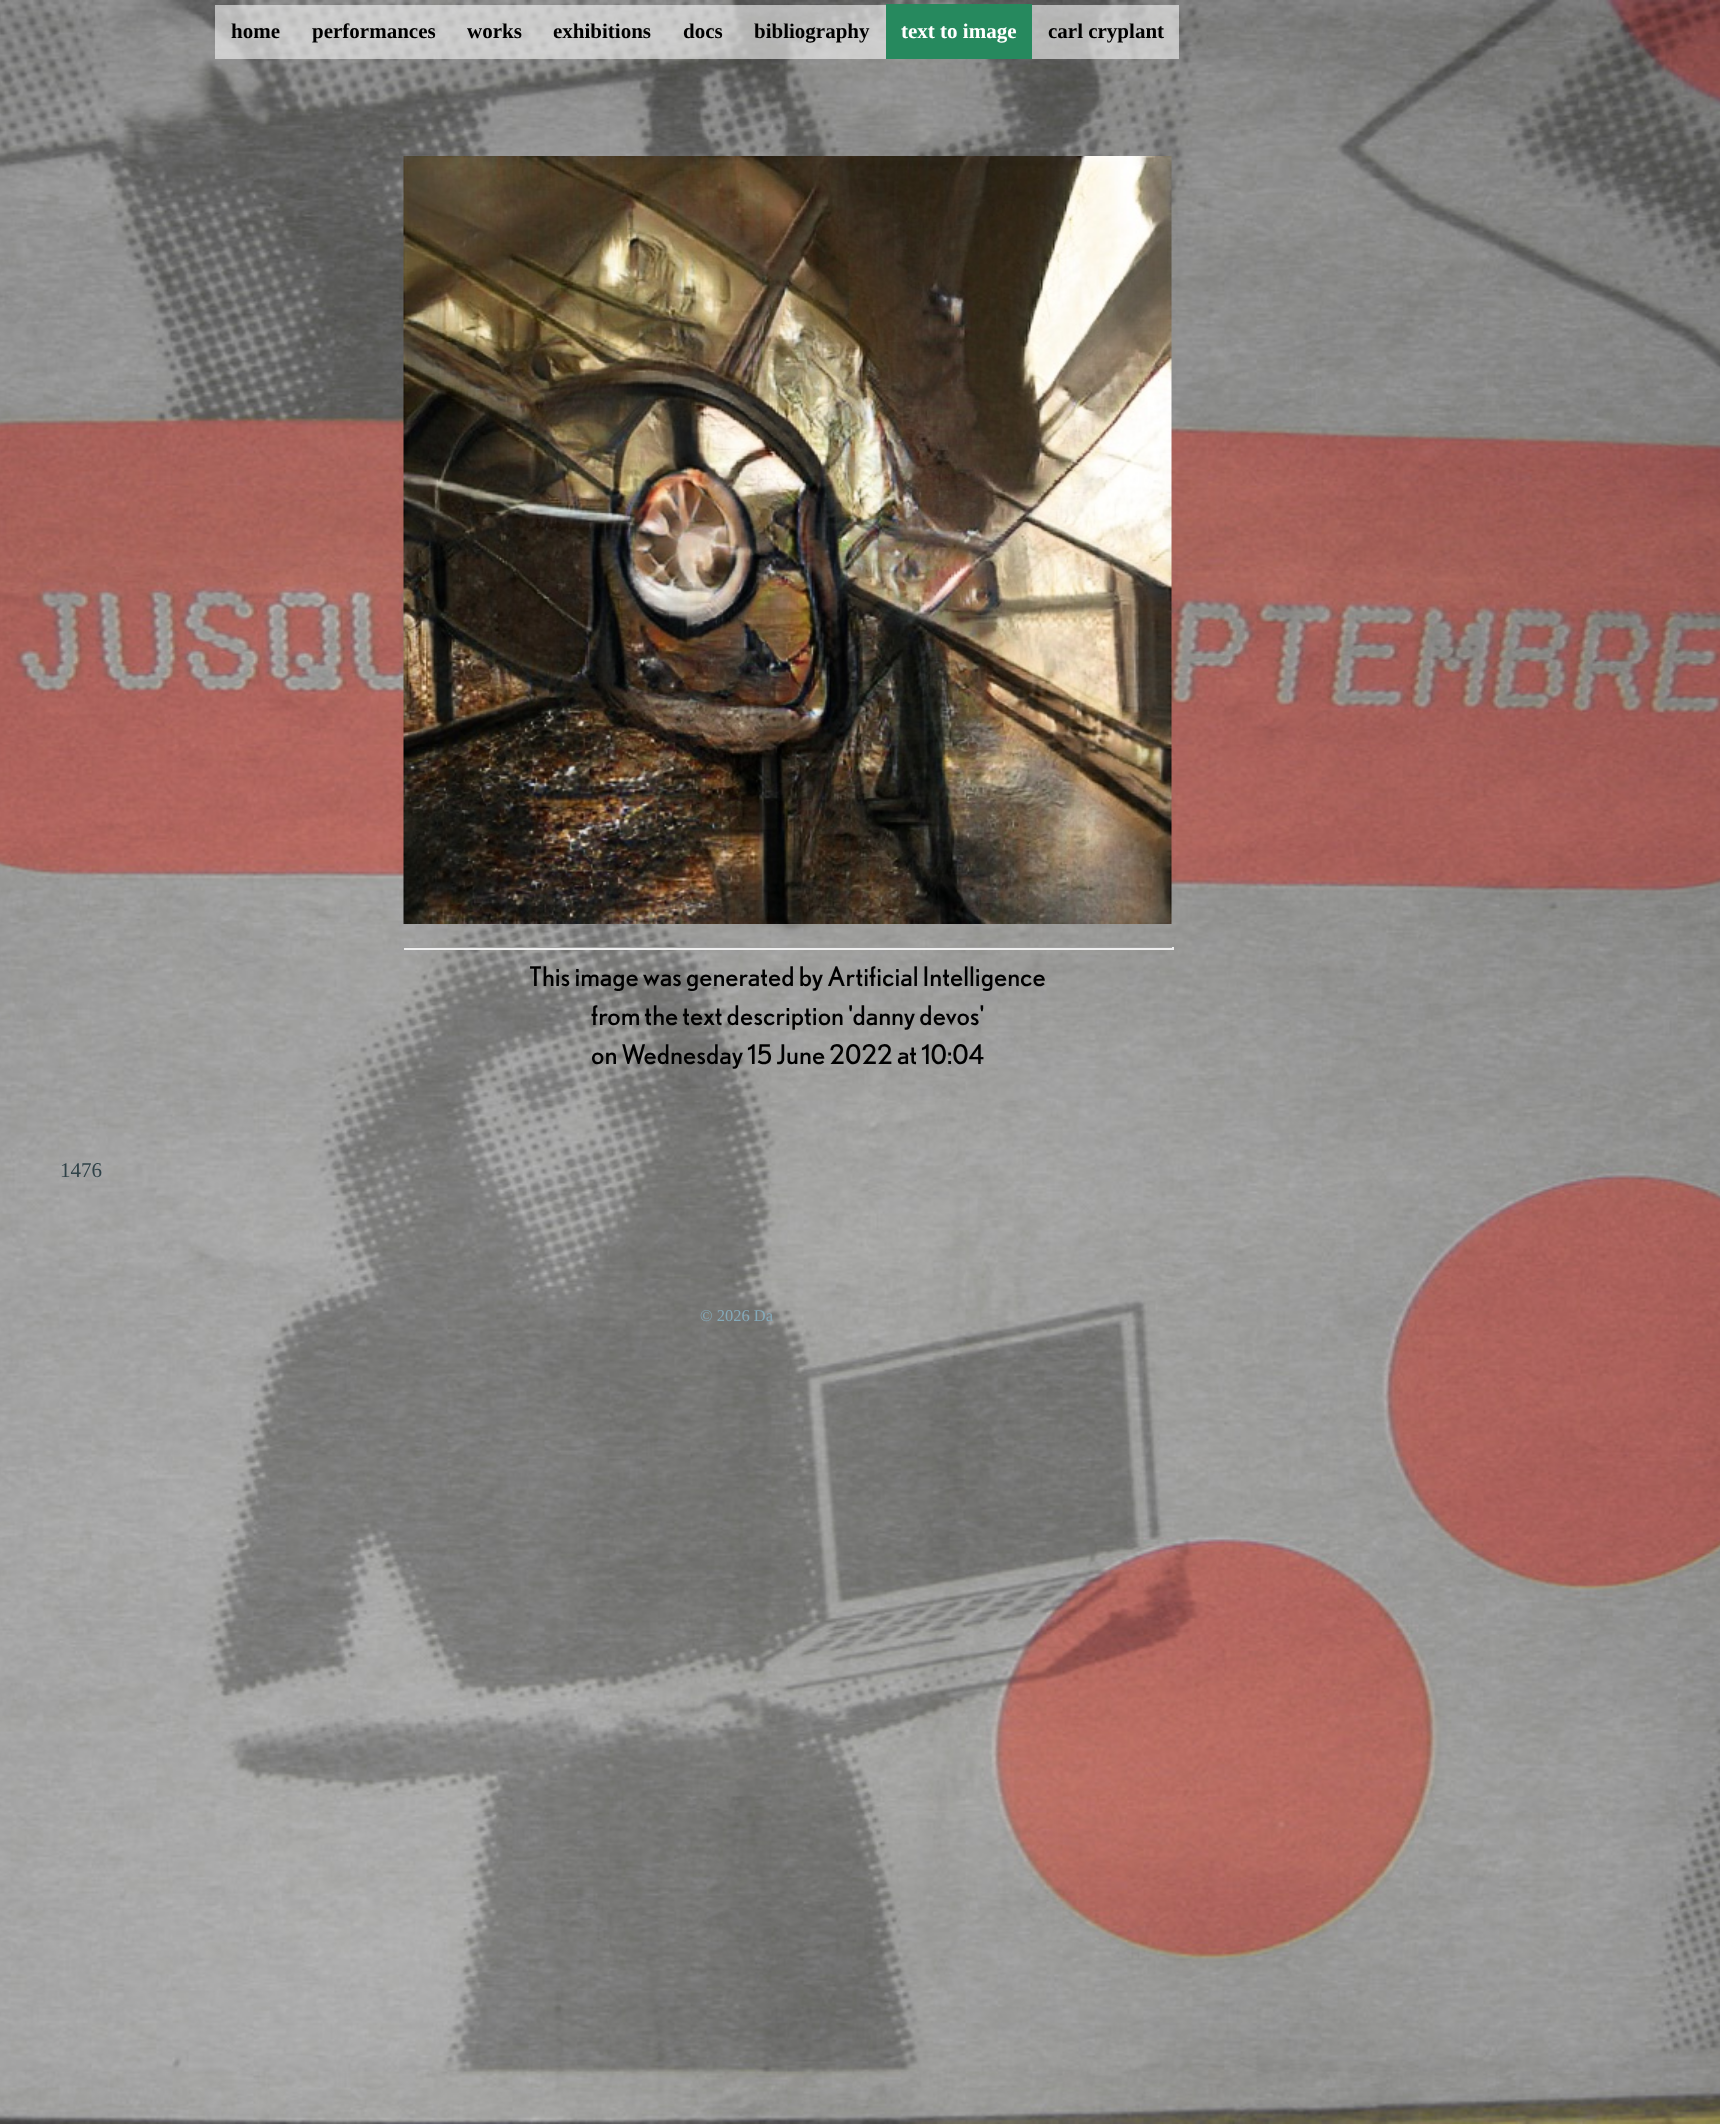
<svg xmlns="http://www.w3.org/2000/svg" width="1720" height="2124">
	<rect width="100%" height="100%" fill="#FFFFFF" />
	<image x="0" y="0" width="1720" height="2124" href="assets/img1.png" />
	<rect x="215" y="5" width="964" height="54" fill="#F8F8F8" fill-opacity="0.6" />
	<g font-family="Liberation Serif" font-size="21" font-weight="700" fill="#000000">
		<text x="231" y="38">home</text>
		<text x="312" y="38">performances</text>
		<text x="467" y="38">works</text>
		<text x="553" y="38">exhibitions</text>
		<text x="683" y="38">docs</text>
		<text x="754" y="38">bibliography</text>
	</g>
	<rect x="886" y="4" width="146" height="55" fill="#26895E" />
	<text x="901" y="38" font-family="Liberation Serif" font-size="21" font-weight="700" fill="#FFFFFF">text to image</text>
	<text x="1048" y="38" font-family="Liberation Serif" font-size="21" font-weight="700" fill="#000000">carl cryplant</text>
	<image x="403" y="156" width="769" height="768" href="assets/img2.png" />
	<rect x="402" y="947" width="771" height="1" fill="#9F9F9F" />
	<rect x="1172" y="947" width="2" height="3" fill="#EEEEEE" />
	<rect x="402" y="948" width="771" height="2" fill="#EEEEEE" />
	<rect x="402" y="947" width="2" height="3" fill="#9F9F9F" />
	<g font-family="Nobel" font-size="27" fill="#000000">
		<text x="529" y="986">This image was generated by Artificial Intelligence</text>
		<text x="591" y="1025">from the text description 'danny devos'</text>
		<text x="591" y="1064">on Wednesday 15 June 2022 at 10:04</text>
	</g>
	<text x="60" y="1177" font-family="Liberation Serif" font-size="21" fill="#2F4248">1476</text>
	<text x="700" y="1321" font-family="Liberation Serif" font-size="16.5" fill="#85AABA">© 2026 Da</text>
</svg>
